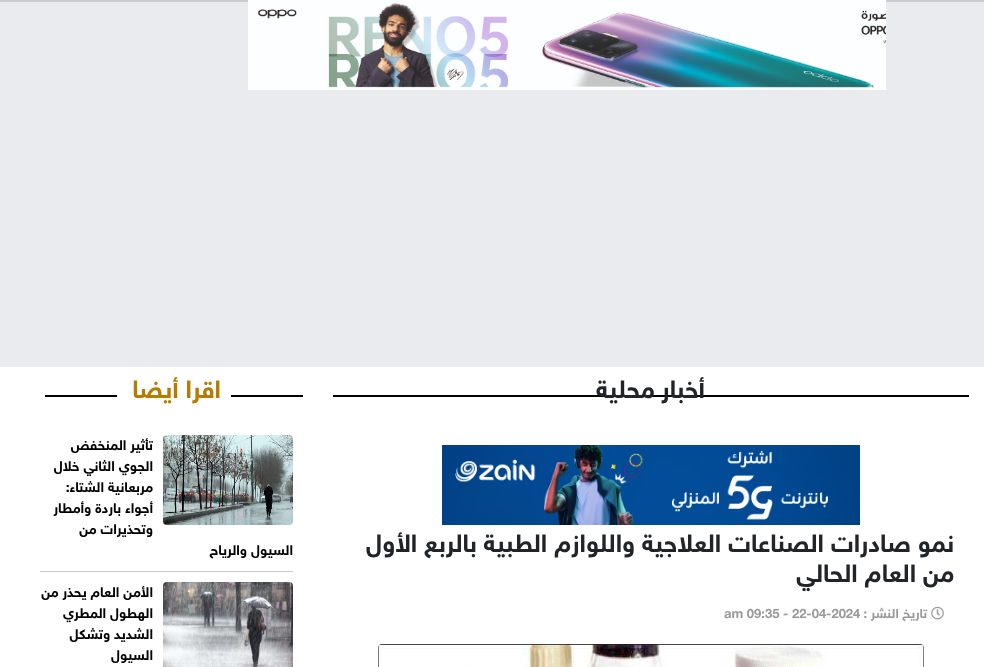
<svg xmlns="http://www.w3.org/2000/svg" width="984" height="667">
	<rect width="100%" height="100%" fill="#E9EBEF" />
	<rect x="0" y="0" width="984" height="2" fill="#CCCCCC" />
	<image x="248" y="0" width="638" height="90" href="assets/img1.png" />
	<rect x="0" y="367" width="984" height="300" fill="#FFFFFF" />
	<rect x="333" y="395" width="636" height="2" fill="#020202" />
	<text x="705" y="398" font-family="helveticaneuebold" font-size="25" font-weight="700" direction="rtl" fill="#212529">أخبار محلية</text>
	<image x="442" y="445" width="418" height="80" href="assets/img2.png" />
	<g font-family="helveticaneuebold" font-size="25" font-weight="700" direction="rtl" fill="#212529">
		<text x="954" y="552">نمو صادرات الصناعات العلاجية واللوازم الطبية بالربع الأول</text>
		<text x="954" y="582">من العام الحالي</text>
	</g>
	<image x="931" y="606" width="13" height="14" href="assets/img3.png" />
	<text x="927" y="618" font-family="helveticaneuebold" font-size="13" font-weight="700" direction="rtl" fill="#999999">تاريخ النشر :</text>
	<text x="724" y="618" font-family="helveticaneuebold" font-size="13" font-weight="700" fill="#999999">am 09:35 - 22-04-2024</text>
	<image x="378" y="644" width="546" height="23" href="assets/img4.png" />
	<rect x="45" y="395" width="258" height="2" fill="#020202" />
	<rect x="117" y="395" width="114" height="2" fill="#FFFFFF" />
	<text x="221" y="398" font-family="helveticaneuebold" font-size="25" font-weight="700" direction="rtl" fill="#B47C00">اقرا أيضا</text>
	<rect x="40" y="571" width="253" height="1" fill="#CCCCCC" />
	<image x="163" y="435" width="130" height="90" href="assets/img5.png" />
	<g font-family="helveticaneuebold" font-size="14" font-weight="700" direction="rtl" fill="#000000">
		<text x="153" y="450">تأثير المنخفض</text>
		<text x="153" y="471">الجوي الثاني خلال</text>
		<text x="153" y="492">مربعانية الشتاء:</text>
		<text x="153" y="513">أجواء باردة وأمطار</text>
		<text x="153" y="534">وتحذيرات من</text>
		<text x="293" y="555">السيول والرياح</text>
	</g>
	<image x="163" y="582" width="130" height="85" href="assets/img6.png" />
	<g font-family="helveticaneuebold" font-size="14" font-weight="700" direction="rtl" fill="#000000">
		<text x="153" y="597">الأمن العام يحذر من</text>
		<text x="153" y="618">الهطول المطري</text>
		<text x="153" y="639">الشديد وتشكل</text>
		<text x="153" y="660">السيول</text>
	</g>
</svg>
